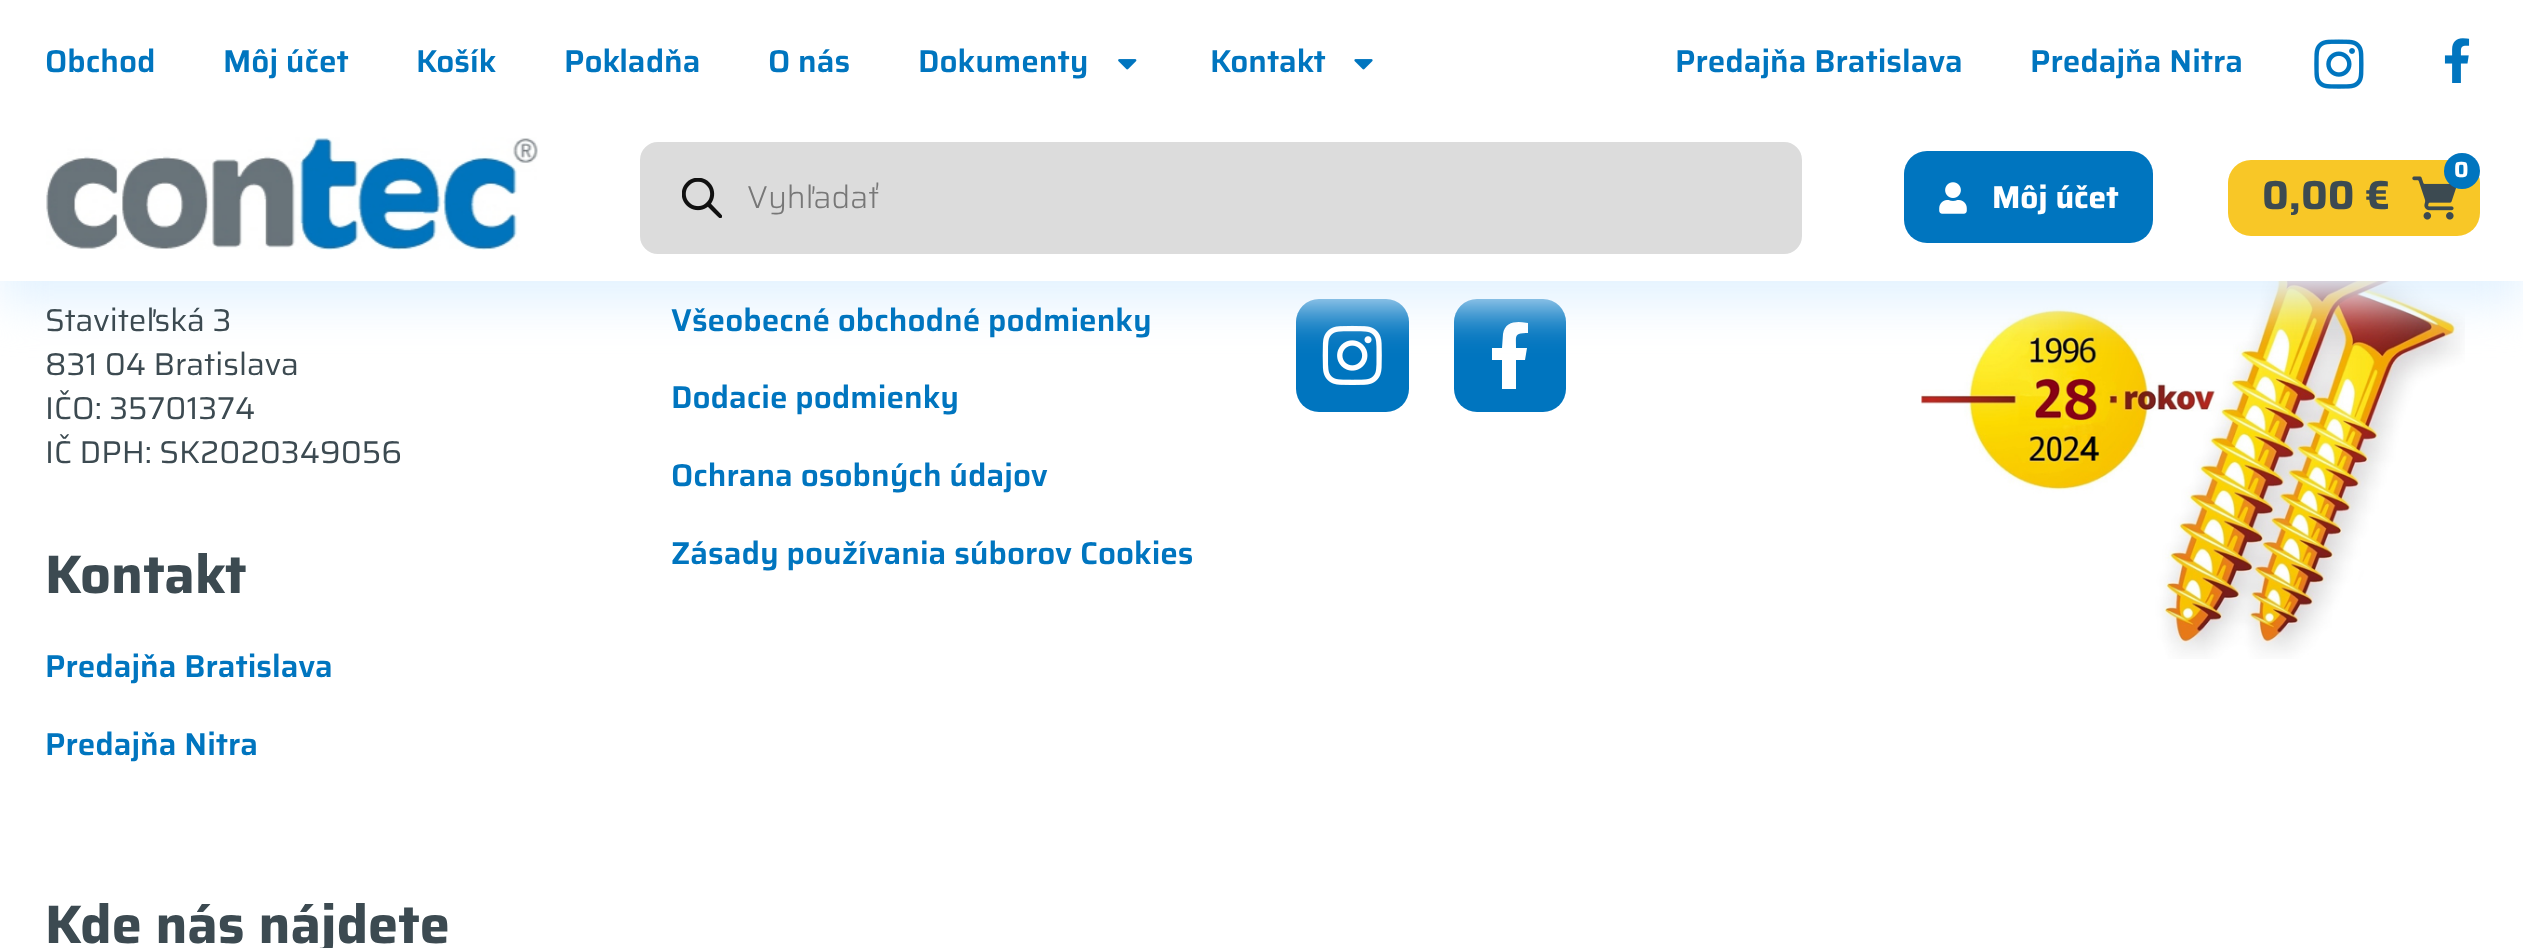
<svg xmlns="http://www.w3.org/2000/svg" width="2523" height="948">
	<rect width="100%" height="100%" fill="#FFFFFF" />
	<rect x="1296" y="299" width="113" height="113" rx="23" fill="#0075BF" />
	<image x="1322" y="325" width="60" height="60" href="assets/img9.png" />
	<rect x="1454" y="299" width="112" height="113" rx="23" fill="#0075BF" />
	<path d="M1525 360L1527 348H1516C1516 335 1514 333 1528 333V323C1517 321 1505 321 1503 334L1502 348H1492V360H1502V389H1516V360Z" fill="#FFFFFF" />
	<image x="1921" y="281" width="544" height="378" href="assets/img10.png" />
	<rect x="0" y="23" width="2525" height="281" fill="#E3F2FF" filter="blur(22.5px)" />
	<rect x="0" y="0" width="2523" height="281" fill="#FFFFFF" />
	<g font-family="Saira" font-size="31.5" font-weight="600" fill="#0075BF">
		<text x="45" y="72">Obchod</text>
		<text x="223" y="72">Môj účet</text>
		<text x="416" y="72">Košík</text>
		<text x="564" y="72">Pokladňa</text>
		<text x="768" y="72">O nás</text>
		<text x="918" y="72">Dokumenty</text>
	</g>
	<image x="1118" y="59" width="19" height="11" href="assets/img1.png" />
	<text x="1210" y="72" font-family="Saira" font-size="31.5" font-weight="600" fill="#0075BF">Kontakt</text>
	<image x="1354" y="59" width="19" height="11" href="assets/img2.png" />
	<g font-family="Saira" font-size="31.5" font-weight="600" fill="#0075BF">
		<text x="1675" y="72">Predajňa Bratislava</text>
		<text x="2030" y="72">Predajňa Nitra</text>
	</g>
	<image x="2314" y="39" width="50" height="50" href="assets/img3.png" />
	<image x="2444" y="38" width="26" height="45" href="assets/img4.png" />
	<image x="46" y="137" width="492" height="113" href="assets/img5.png" />
	<rect x="637.5" y="139.5" width="1167" height="117" rx="20.5" fill="#DCDCDC" stroke="#FFFFFF" stroke-width="5" />
	<image x="682" y="178" width="40" height="40" href="assets/img6.png" />
	<text x="747" y="208" font-family="Saira" font-size="31.5" font-weight="300" fill="#777777">Vyhľadať</text>
	<rect x="1904" y="151" width="249" height="92" rx="23" fill="#0075BF" />
	<image x="1939" y="182" width="28" height="32" href="assets/img7.png" />
	<text x="1992" y="208" font-family="Saira" font-size="31.5" font-weight="700" fill="#FFFFFF">Môj účet</text>
	<rect x="2228" y="160" width="252" height="76" rx="23" fill="#F8C727" />
	<image x="2412" y="176" width="44" height="44" href="assets/img8.png" />
	<circle cx="2462" cy="171" r="18" fill="#0075BF" />
	<text x="2454" y="177" font-family="Saira" font-size="22" font-weight="700" fill="#FFFFFF">0</text>
	<text x="2262" y="209" font-family="Saira" font-size="40.5" font-weight="700" fill="#3C4A51">0,00 €</text>
	<g font-family="Saira" font-size="31.5" fill="#3C4A51">
		<text x="45" y="331">Staviteľská 3</text>
		<text x="45" y="375">831 04 Bratislava</text>
		<text x="45" y="419">IČO: 35701374</text>
		<text x="45" y="463">IČ DPH: SK2020349056</text>
	</g>
	<text x="45" y="593" font-family="Saira" font-size="54" font-weight="700" fill="#3C4A51">Kontakt</text>
	<g font-family="Saira" font-size="31.5" font-weight="600" fill="#0075BF">
		<text x="45" y="677">Predajňa Bratislava</text>
		<text x="45" y="755">Predajňa Nitra</text>
		<text x="671" y="331">Všeobecné obchodné podmienky</text>
		<text x="671" y="408">Dodacie podmienky</text>
		<text x="671" y="486">Ochrana osobných údajov</text>
		<text x="671" y="564">Zásady používania súborov Cookies</text>
	</g>
	<text x="45" y="943" font-family="Saira" font-size="54" font-weight="700" fill="#3C4A51">Kde nás nájdete</text>
</svg>
